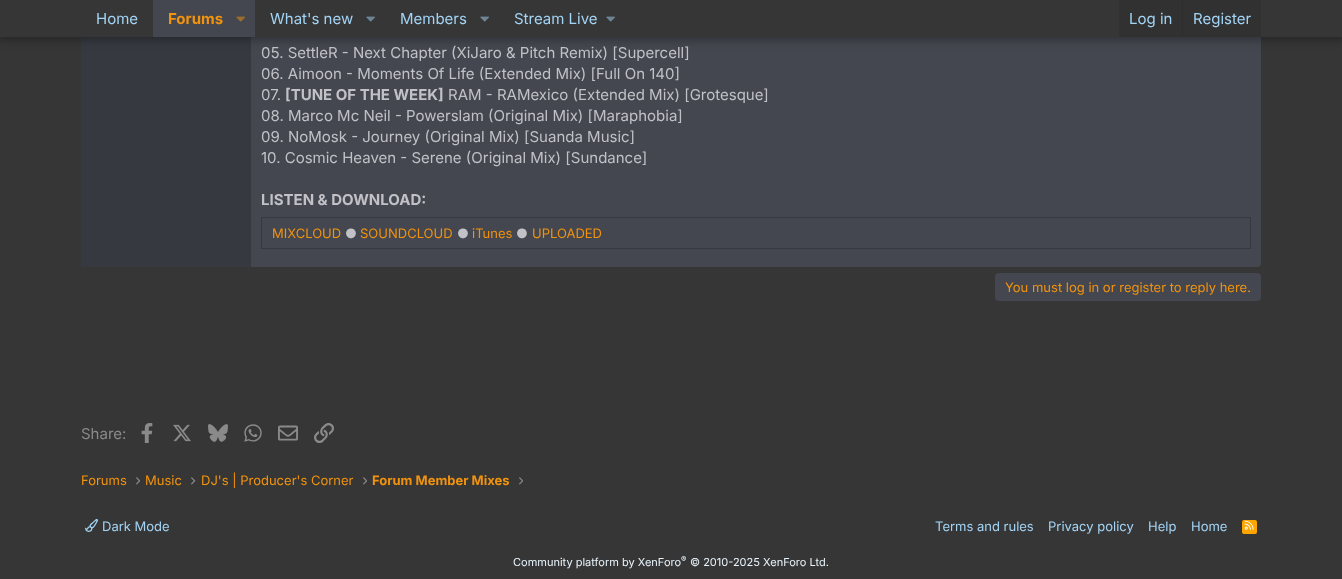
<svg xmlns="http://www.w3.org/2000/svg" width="1342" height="579">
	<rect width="100%" height="100%" fill="#363636" />
	<rect x="81" y="-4" width="1180" height="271" rx="4" fill="#44474F" />
	<path d="M84-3H251V267H84C82.5 267 81 265.5 81 264V0C81-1.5 82.5-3 84-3Z" fill="#363940" />
	<rect x="-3" y="-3" width="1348" height="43" fill="#000000" fill-opacity="0.3" filter="blur(4px)" />
	<rect x="0" y="0" width="1342" height="37" fill="#363636" />
	<text x="96" y="24" font-family="Inter" font-size="15" fill="#A3D4F5">Home</text>
	<rect x="153" y="0" width="102" height="37" fill="#44474F" />
	<text x="168" y="24" font-family="Inter" font-size="15" font-weight="700" fill="#F2930D">Forums</text>
	<image x="236" y="16" width="9" height="6" href="assets/img1.png" />
	<text x="270" y="24" font-family="Inter" font-size="15" fill="#A3D4F5">What's new</text>
	<image x="366" y="16" width="9" height="6" href="assets/img2.png" />
	<text x="400" y="24" font-family="Inter" font-size="15" fill="#A3D4F5">Members</text>
	<image x="480" y="16" width="9" height="6" href="assets/img2.png" />
	<text x="514" y="24" font-family="Inter" font-size="15" fill="#A3D4F5">Stream Live</text>
	<image x="606" y="16" width="9" height="6" href="assets/img2.png" />
	<rect x="1119" y="0" width="142" height="37" fill="#313131" />
	<text x="1129" y="24" font-family="Inter" font-size="15" fill="#A3D4F5">Log in</text>
	<rect x="1182" y="0" width="1" height="37" fill="#2D2D2D" />
	<text x="1193" y="24" font-family="Inter" font-size="15" fill="#A3D4F5">Register</text>
	<g font-family="Inter" font-size="15" fill="#C1C1C7">
		<text x="261" y="58">05. SettleR - Next Chapter (XiJaro &amp; Pitch Remix) [Supercell]</text>
		<text x="261" y="79">06. Aimoon - Moments Of Life (Extended Mix) [Full On 140]</text>
		<text x="261" y="100">07.</text>
	</g>
	<text x="285" y="100" font-family="Inter" font-size="15" font-weight="700" fill="#C1C1C7">[TUNE OF THE WEEK]</text>
	<g font-family="Inter" font-size="15" fill="#C1C1C7">
		<text x="448" y="100">RAM - RAMexico (Extended Mix) [Grotesque]</text>
		<text x="261" y="121">08. Marco Mc Neil - Powerslam (Original Mix) [Maraphobia]</text>
		<text x="261" y="142">09. NoMosk - Journey (Original Mix) [Suanda Music]</text>
		<text x="261" y="163">10. Cosmic Heaven - Serene (Original Mix) [Sundance]</text>
	</g>
	<text x="261" y="205" font-family="Inter" font-size="15" font-weight="700" fill="#C1C1C7">LISTEN &amp; DOWNLOAD:</text>
	<rect x="261.5" y="217.5" width="989" height="31" fill="none" stroke="#363940" />
	<text x="272" y="238" font-family="Inter" font-size="13" fill="#F2930D">MIXCLOUD</text>
	<text x="345" y="238" font-family="Inter" font-size="13" fill="#C1C1C7">●</text>
	<text x="360" y="238" font-family="Inter" font-size="13" fill="#F2930D">SOUNDCLOUD</text>
	<text x="457" y="238" font-family="Inter" font-size="13" fill="#C1C1C7">●</text>
	<text x="472" y="238" font-family="Inter" font-size="13" fill="#F2930D">iTunes</text>
	<text x="516" y="238" font-family="Inter" font-size="13" fill="#C1C1C7">●</text>
	<text x="532" y="238" font-family="Inter" font-size="13" fill="#F2930D">UPLOADED</text>
	<rect x="995" y="273" width="266" height="28" rx="4" fill="#44474F" />
	<text x="1005" y="292" font-family="Inter" font-size="13" fill="#F2930D">You must log in or register to reply here.</text>
	<text x="81" y="439" font-family="Inter" font-size="15" fill="#8A8A8A">Share:</text>
	<image x="141" y="423" width="12" height="20" href="assets/img3.png" />
	<image x="173" y="424" width="18" height="18" href="assets/img4.png" />
	<image x="208" y="424" width="20" height="18" href="assets/img5.png" />
	<image x="244" y="424" width="18" height="18" href="assets/img6.png" />
	<image x="278" y="425" width="20" height="16" href="assets/img7.png" />
	<image x="314" y="423" width="20" height="20" href="assets/img8.png" />
	<text x="81" y="485" font-family="Inter" font-size="13" fill="#F2930D">Forums</text>
	<image x="136" y="477" width="4" height="8" href="assets/img9.png" />
	<text x="145" y="485" font-family="Inter" font-size="13" fill="#F2930D">Music</text>
	<image x="191" y="477" width="5" height="8" href="assets/img10.png" />
	<text x="201" y="485" font-family="Inter" font-size="13" fill="#F2930D">DJ's | Producer's Corner</text>
	<image x="363" y="477" width="4" height="8" href="assets/img9.png" />
	<text x="372" y="485" font-family="Inter" font-size="13" font-weight="700" fill="#F2930D">Forum Member Mixes</text>
	<image x="519" y="477" width="4" height="8" href="assets/img9.png" />
	<image x="85" y="519" width="13" height="13" href="assets/img11.png" />
	<g font-family="Inter" font-size="13" fill="#A3D4F5">
		<text x="102" y="531">Dark Mode</text>
		<text x="935" y="531">Terms and rules</text>
		<text x="1048" y="531">Privacy policy</text>
		<text x="1148" y="531">Help</text>
		<text x="1191" y="531">Home</text>
	</g>
	<rect x="1242" y="520" width="15" height="14" rx="2" fill="#FFA500" />
	<image x="1244" y="520" width="10" height="10" href="assets/img12.png" />
	<text x="513" y="566" font-family="Inter" font-size="11" fill="#E8F4FC">Community platform by XenForo</text>
	<text x="681" y="562" font-family="Inter" font-size="8" fill="#E8F4FC">®</text>
	<text x="690" y="566" font-family="Inter" font-size="11" fill="#E8F4FC">© 2010-2025 XenForo Ltd.</text>
</svg>
